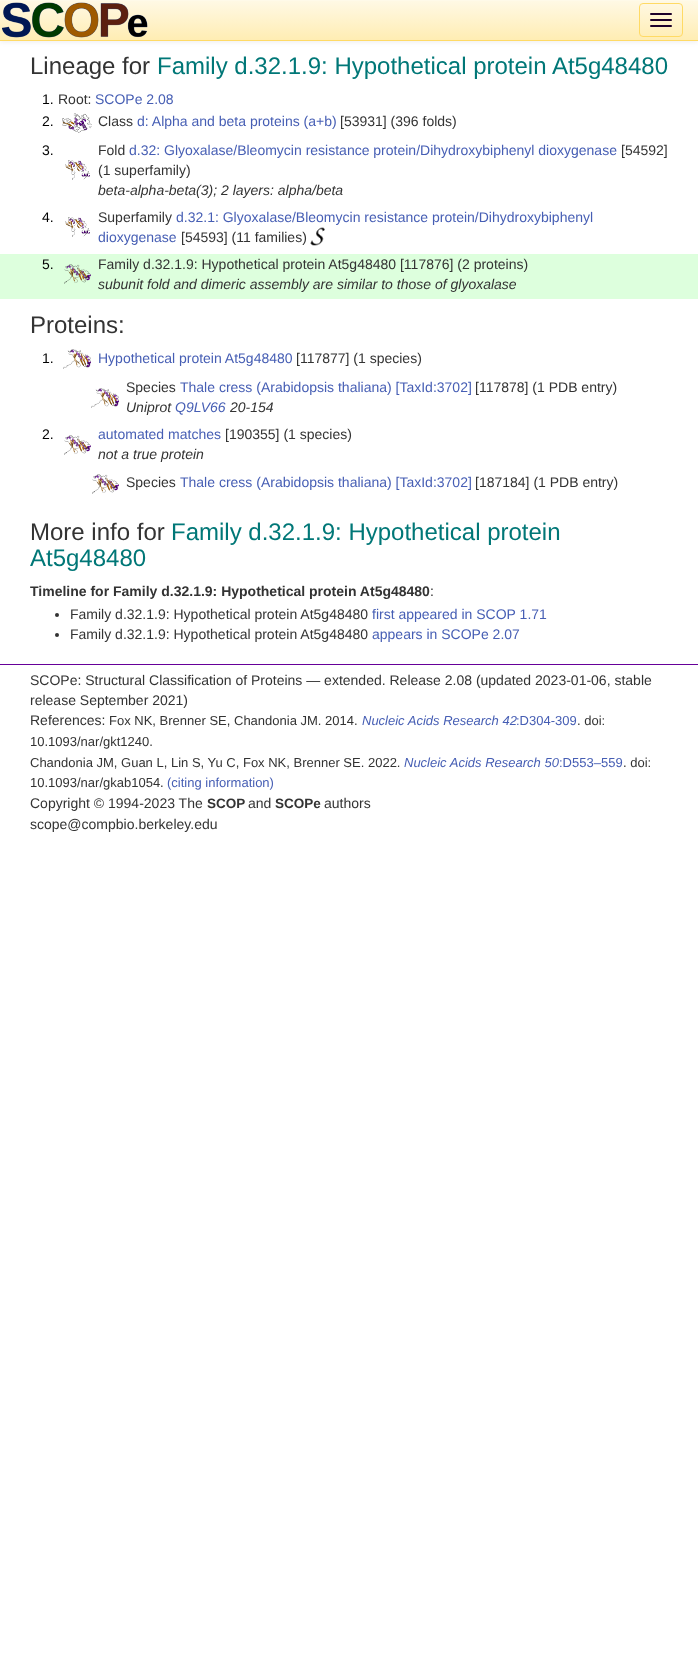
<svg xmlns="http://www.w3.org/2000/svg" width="698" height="1666">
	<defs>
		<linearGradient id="g1" gradientUnits="userSpaceOnUse" x1="349" y1="0" x2="349" y2="40"><stop offset="0" stop-color="#FFF9E6" /><stop offset="1" stop-color="#FFEDB3" /></linearGradient>
	</defs>
	<rect width="100%" height="100%" fill="#FFFFFF" />
	<rect x="0" y="1" width="698" height="41" fill="#000000" fill-opacity="0.07" filter="blur(2.5px)" />
	<rect x="0" y="1" width="698" height="39" fill="url(#g1)" />
	<rect x="0" y="0" width="698" height="1" fill="#FFFAE9" />
	<rect x="0" y="40" width="698" height="1" fill="#FFDA65" />
	<image x="2" y="2" width="146" height="36" href="assets/img1.png" />
	<rect x="639.5" y="3.5" width="43" height="33" rx="3.5" fill="none" stroke="#FFDA65" />
	<rect x="650" y="13" width="22" height="2" rx="1" fill="#1D002B" />
	<rect x="650" y="19" width="22" height="2" rx="1" fill="#1D002B" />
	<rect x="650" y="25" width="22" height="2" rx="1" fill="#1D002B" />
	<text x="30" y="74" font-family="Liberation Sans" font-size="24" fill="#333333">Lineage for</text>
	<text x="157" y="74" font-family="Liberation Sans" font-size="24" fill="#007777">Family d.32.1.9: Hypothetical protein At5g48480</text>
	<text x="42" y="104" font-family="Liberation Sans" font-size="14" fill="#000000">1.</text>
	<text x="58" y="104" font-family="Liberation Sans" font-size="14" fill="#333333">Root:</text>
	<text x="95" y="104" font-family="Liberation Sans" font-size="14" fill="#465EB4">SCOPe 2.08</text>
	<text x="42" y="126" font-family="Liberation Sans" font-size="14" fill="#000000">2.</text>
	<image x="62" y="113" width="30" height="20" href="assets/img2.png" />
	<text x="98" y="126" font-family="Liberation Sans" font-size="14" fill="#333333">Class</text>
	<text x="137" y="126" font-family="Liberation Sans" font-size="14" fill="#465EB4">d: Alpha and beta proteins (a+b)</text>
	<text x="340" y="126" font-family="Liberation Sans" font-size="14" fill="#333333">[53931] (396 folds)</text>
	<text x="42" y="155" font-family="Liberation Sans" font-size="14" fill="#000000">3.</text>
	<image x="65" y="160" width="25" height="20" href="assets/img3.png" />
	<text x="98" y="155" font-family="Liberation Sans" font-size="14" fill="#333333">Fold</text>
	<text x="129" y="155" font-family="Liberation Sans" font-size="14" fill="#465EB4">d.32: Glyoxalase/Bleomycin resistance protein/Dihydroxybiphenyl dioxygenase</text>
	<g font-family="Liberation Sans" font-size="14" fill="#333333">
		<text x="621" y="155">[54592]</text>
		<text x="98" y="175">(1 superfamily)</text>
	</g>
	<text x="98" y="195" font-family="Liberation Sans" font-size="14" font-style="italic" fill="#333333">beta-alpha-beta(3); 2 layers: alpha/beta</text>
	<text x="42" y="222" font-family="Liberation Sans" font-size="14" fill="#000000">4.</text>
	<image x="65" y="217" width="25" height="20" href="assets/img3.png" />
	<text x="98" y="222" font-family="Liberation Sans" font-size="14" fill="#333333">Superfamily</text>
	<g font-family="Liberation Sans" font-size="14" fill="#465EB4">
		<text x="176" y="222">d.32.1: Glyoxalase/Bleomycin resistance protein/Dihydroxybiphenyl</text>
		<text x="98" y="242">dioxygenase</text>
	</g>
	<text x="181" y="242" font-family="Liberation Sans" font-size="14" fill="#333333">[54593] (11 families)</text>
	<image x="310" y="227" width="15" height="19" href="assets/img4.png" />
	<rect x="0" y="254" width="698" height="45" fill="#DDFFDD" />
	<text x="42" y="269" font-family="Liberation Sans" font-size="14" fill="#000000">5.</text>
	<image x="64" y="264" width="27" height="20" href="assets/img5.png" />
	<text x="98" y="269" font-family="Liberation Sans" font-size="14" fill="#333333">Family d.32.1.9: Hypothetical protein At5g48480 [117876] (2 proteins)</text>
	<text x="98" y="289" font-family="Liberation Sans" font-size="14" font-style="italic" fill="#333333">subunit fold and dimeric assembly are similar to those of glyoxalase</text>
	<text x="30" y="333" font-family="Liberation Sans" font-size="24" fill="#333333">Proteins:</text>
	<text x="42" y="363" font-family="Liberation Sans" font-size="14" fill="#000000">1.</text>
	<image x="63" y="349" width="28" height="20" href="assets/img6.png" />
	<text x="98" y="363" font-family="Liberation Sans" font-size="14" fill="#465EB4">Hypothetical protein At5g48480</text>
	<text x="296" y="363" font-family="Liberation Sans" font-size="14" fill="#333333">[117877] (1 species)</text>
	<image x="91" y="388" width="28" height="20" href="assets/img6.png" />
	<text x="126" y="392" font-family="Liberation Sans" font-size="14" fill="#333333">Species</text>
	<text x="180" y="392" font-family="Liberation Sans" font-size="14" fill="#465EB4">Thale cress (Arabidopsis thaliana) [TaxId:3702]</text>
	<text x="475" y="392" font-family="Liberation Sans" font-size="14" fill="#333333">[117878] (1 PDB entry)</text>
	<text x="126" y="412" font-family="Liberation Sans" font-size="14" font-style="italic" fill="#333333">Uniprot</text>
	<text x="175" y="412" font-family="Liberation Sans" font-size="14" font-style="italic" fill="#465EB4">Q9LV66</text>
	<text x="230" y="412" font-family="Liberation Sans" font-size="14" font-style="italic" fill="#333333">20-154</text>
	<text x="42" y="439" font-family="Liberation Sans" font-size="14" fill="#000000">2.</text>
	<image x="64" y="435" width="27" height="20" href="assets/img7.png" />
	<text x="98" y="439" font-family="Liberation Sans" font-size="14" fill="#465EB4">automated matches</text>
	<text x="225" y="439" font-family="Liberation Sans" font-size="14" fill="#333333">[190355] (1 species)</text>
	<text x="98" y="459" font-family="Liberation Sans" font-size="14" font-style="italic" fill="#333333">not a true protein</text>
	<image x="92" y="474" width="27" height="20" href="assets/img7.png" />
	<text x="126" y="487" font-family="Liberation Sans" font-size="14" fill="#333333">Species</text>
	<text x="180" y="487" font-family="Liberation Sans" font-size="14" fill="#465EB4">Thale cress (Arabidopsis thaliana) [TaxId:3702]</text>
	<text x="475" y="487" font-family="Liberation Sans" font-size="14" fill="#333333">[187184] (1 PDB entry)</text>
	<text x="30" y="540" font-family="Liberation Sans" font-size="24" fill="#333333">More info for</text>
	<g font-family="Liberation Sans" font-size="24" fill="#007777">
		<text x="171" y="540">Family d.32.1.9: Hypothetical protein</text>
		<text x="30" y="566">At5g48480</text>
	</g>
	<text x="30" y="596" font-family="Liberation Sans" font-size="14" font-weight="700" fill="#333333">Timeline for Family d.32.1.9: Hypothetical protein At5g48480</text>
	<text x="430" y="596" font-family="Liberation Sans" font-size="14" fill="#333333">:</text>
	<circle cx="57" cy="615" r="2" fill="#333333" />
	<text x="70" y="619" font-family="Liberation Sans" font-size="14" fill="#333333">Family d.32.1.9: Hypothetical protein At5g48480</text>
	<text x="372" y="619" font-family="Liberation Sans" font-size="14" fill="#465EB4">first appeared in SCOP 1.71</text>
	<circle cx="57" cy="635" r="2" fill="#333333" />
	<text x="70" y="639" font-family="Liberation Sans" font-size="14" fill="#333333">Family d.32.1.9: Hypothetical protein At5g48480</text>
	<text x="372" y="639" font-family="Liberation Sans" font-size="14" fill="#465EB4">appears in SCOPe 2.07</text>
	<rect x="0" y="664" width="698" height="1" fill="#660099" />
	<g font-family="Liberation Sans" font-size="14" fill="#333333">
		<text x="30" y="685">SCOPe: Structural Classification of Proteins — extended. Release 2.08 (updated 2023-01-06, stable</text>
		<text x="30" y="705">release September 2021)</text>
		<text x="30" y="725">References:</text>
	</g>
	<text x="109" y="725" font-family="Liberation Sans" font-size="13" fill="#333333">Fox NK, Brenner SE, Chandonia JM. 2014.</text>
	<text x="362" y="725" font-family="Liberation Sans" font-size="13" font-style="italic" fill="#465EB4">Nucleic Acids Research 42</text>
	<text x="516" y="725" font-family="Liberation Sans" font-size="13" fill="#465EB4">:D304-309</text>
	<g font-family="Liberation Sans" font-size="13" fill="#333333">
		<text x="577" y="725">. doi:</text>
		<text x="30" y="746">10.1093/nar/gkt1240.</text>
		<text x="30" y="767">Chandonia JM, Guan L, Lin S, Yu C, Fox NK, Brenner SE. 2022.</text>
	</g>
	<text x="404" y="767" font-family="Liberation Sans" font-size="13" font-style="italic" fill="#465EB4">Nucleic Acids Research 50</text>
	<text x="559" y="767" font-family="Liberation Sans" font-size="13" fill="#465EB4">:D553–559</text>
	<g font-family="Liberation Sans" font-size="13" fill="#333333">
		<text x="623" y="767">. doi:</text>
		<text x="30" y="787">10.1093/nar/gkab1054.</text>
	</g>
	<text x="167" y="787" font-family="Liberation Sans" font-size="13" fill="#465EB4">(citing information)</text>
	<text x="30" y="808" font-family="Liberation Sans" font-size="14" fill="#333333">Copyright © 1994-2023 The</text>
	<text x="207" y="808" font-family="Liberation Sans" font-size="13.5" font-weight="700" fill="#333333">SCOP</text>
	<text x="248" y="808" font-family="Liberation Sans" font-size="14" fill="#333333">and</text>
	<text x="275" y="808" font-family="Liberation Sans" font-size="13.5" font-weight="700" fill="#333333">SCOPe</text>
	<g font-family="Liberation Sans" font-size="14" fill="#333333">
		<text x="324" y="808">authors</text>
		<text x="30" y="829">scope@compbio.berkeley.edu</text>
	</g>
</svg>
